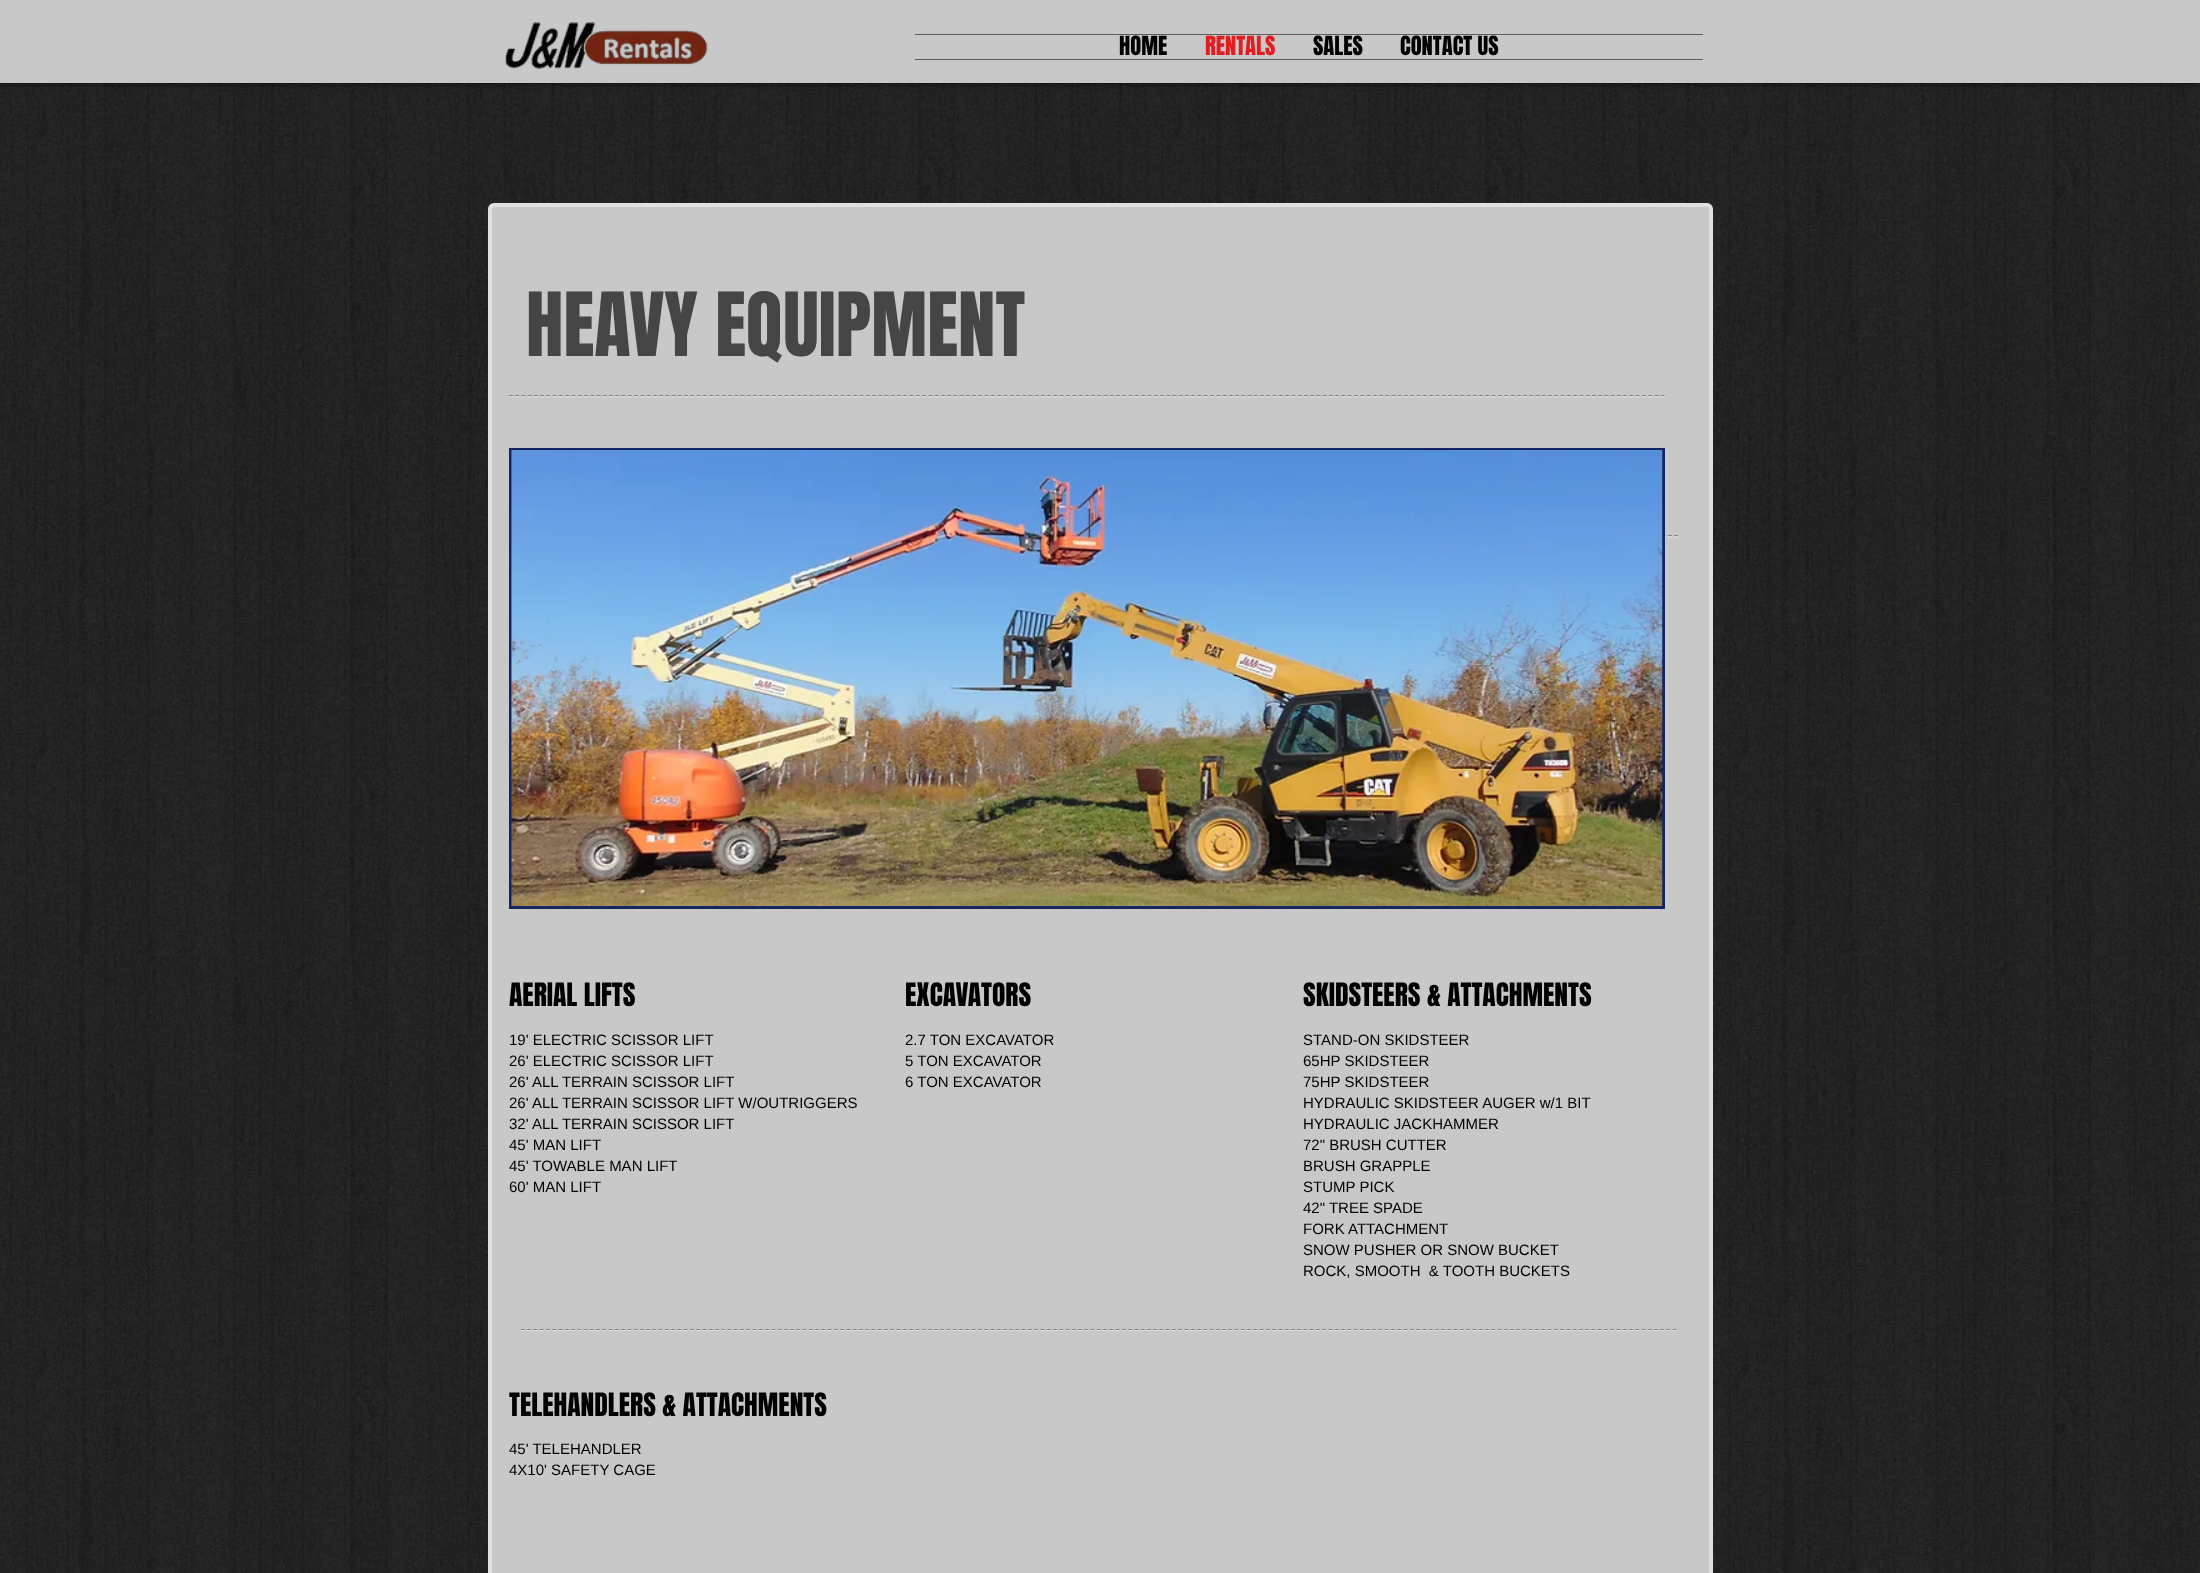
<svg xmlns="http://www.w3.org/2000/svg" width="2200" height="1573">
	<rect width="100%" height="100%" fill="#FFFFFF" />
	<image x="0" y="83" width="2200" height="1490" href="assets/img3.png" />
	<rect x="0" y="-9" width="2200" height="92" fill="#000000" fill-opacity="0.7" filter="blur(3px)" />
	<rect x="0" y="0" width="2200" height="83" fill="#C8C8C8" />
	<image x="505" y="22" width="203" height="47" href="assets/img1.png" />
	<rect x="915" y="34" width="788" height="1" fill="#5F5E5D" />
	<rect x="915" y="59" width="788" height="1" fill="#5F5E5D" />
	<text x="1119" y="55" font-family="Anton" font-size="22.5" fill="#000000">HOME</text>
	<text x="1205" y="55" font-family="Anton" font-size="22.5" fill="#E21C21">RENTALS</text>
	<g font-family="Anton" font-size="22.5" fill="#000000">
		<text x="1313" y="55">SALES</text>
		<text x="1400" y="55">CONTACT US</text>
	</g>
	<rect x="490" y="205" width="1221" height="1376" rx="4" fill="#C8C8C8" stroke="#E0E0E0" stroke-width="4" />
	<text x="526" y="356" font-family="Anton" font-size="75" fill="#454545">HEAVY EQUIPMENT</text>
	<path d="M509 395.5H1665" fill="none" stroke="#828282" stroke-width="1.2" stroke-dasharray="3.75 2.51" />
	<path d="M509 397H1665" fill="none" stroke="#FFFFFF" stroke-opacity="0.5" stroke-width="1.2" stroke-dasharray="3.75 2.51" />
	<path d="M522.5 535.5H1679" fill="none" stroke="#828282" stroke-width="1.2" stroke-dasharray="3.75 2.51" />
	<path d="M522.5 537H1679" fill="none" stroke="#FFFFFF" stroke-opacity="0.5" stroke-width="1.2" stroke-dasharray="3.75 2.51" />
	<rect x="509" y="448" width="1156" height="461" fill="#132460" />
	<image x="511" y="450" width="1152" height="457" href="assets/img2.png" />
	<g font-family="Anton" font-size="27.5" fill="#000000">
		<text x="509" y="1006">AERIAL LIFTS</text>
		<text x="905" y="1006">EXCAVATORS</text>
		<text x="1303" y="1006">SKIDSTEERS &amp; ATTACHMENTS</text>
	</g>
	<g font-family="Liberation Sans" font-size="15" fill="#000000">
		<text x="509" y="1045">19' ELECTRIC SCISSOR LIFT</text>
		<text x="509" y="1066">26' ELECTRIC SCISSOR LIFT</text>
		<text x="509" y="1087">26' ALL TERRAIN SCISSOR LIFT</text>
		<text x="509" y="1108">26' ALL TERRAIN SCISSOR LIFT W/OUTRIGGERS</text>
		<text x="509" y="1129">32' ALL TERRAIN SCISSOR LIFT</text>
		<text x="509" y="1150">45' MAN LIFT</text>
		<text x="509" y="1171">45' TOWABLE MAN LIFT</text>
		<text x="509" y="1192">60' MAN LIFT</text>
		<text x="905" y="1045">2.7 TON EXCAVATOR</text>
		<text x="905" y="1066">5 TON EXCAVATOR</text>
		<text x="905" y="1087">6 TON EXCAVATOR</text>
		<text x="1303" y="1045">STAND-ON SKIDSTEER</text>
		<text x="1303" y="1066">65HP SKIDSTEER</text>
		<text x="1303" y="1087">75HP SKIDSTEER</text>
		<text x="1303" y="1108">HYDRAULIC SKIDSTEER AUGER w/1 BIT</text>
		<text x="1303" y="1129">HYDRAULIC JACKHAMMER</text>
		<text x="1303" y="1150">72" BRUSH CUTTER</text>
		<text x="1303" y="1171">BRUSH GRAPPLE</text>
		<text x="1303" y="1192">STUMP PICK</text>
		<text x="1303" y="1213">42" TREE SPADE</text>
		<text x="1303" y="1234">FORK ATTACHMENT</text>
		<text x="1303" y="1255">SNOW PUSHER OR SNOW BUCKET</text>
		<text x="1303" y="1276" xml:space="preserve">ROCK, SMOOTH  &amp; TOOTH BUCKETS</text>
	</g>
	<path d="M521 1329.5H1677.5" fill="none" stroke="#828282" stroke-width="1.2" stroke-dasharray="3.75 2.51" />
	<path d="M521 1330.5H1677.5" fill="none" stroke="#FFFFFF" stroke-opacity="0.5" stroke-width="1.2" stroke-dasharray="3.75 2.51" />
	<text x="509" y="1416" font-family="Anton" font-size="27.5" fill="#000000">TELEHANDLERS &amp; ATTACHMENTS</text>
	<g font-family="Liberation Sans" font-size="15" fill="#000000">
		<text x="509" y="1454">45' TELEHANDLER</text>
		<text x="509" y="1475">4X10' SAFETY CAGE</text>
	</g>
</svg>
